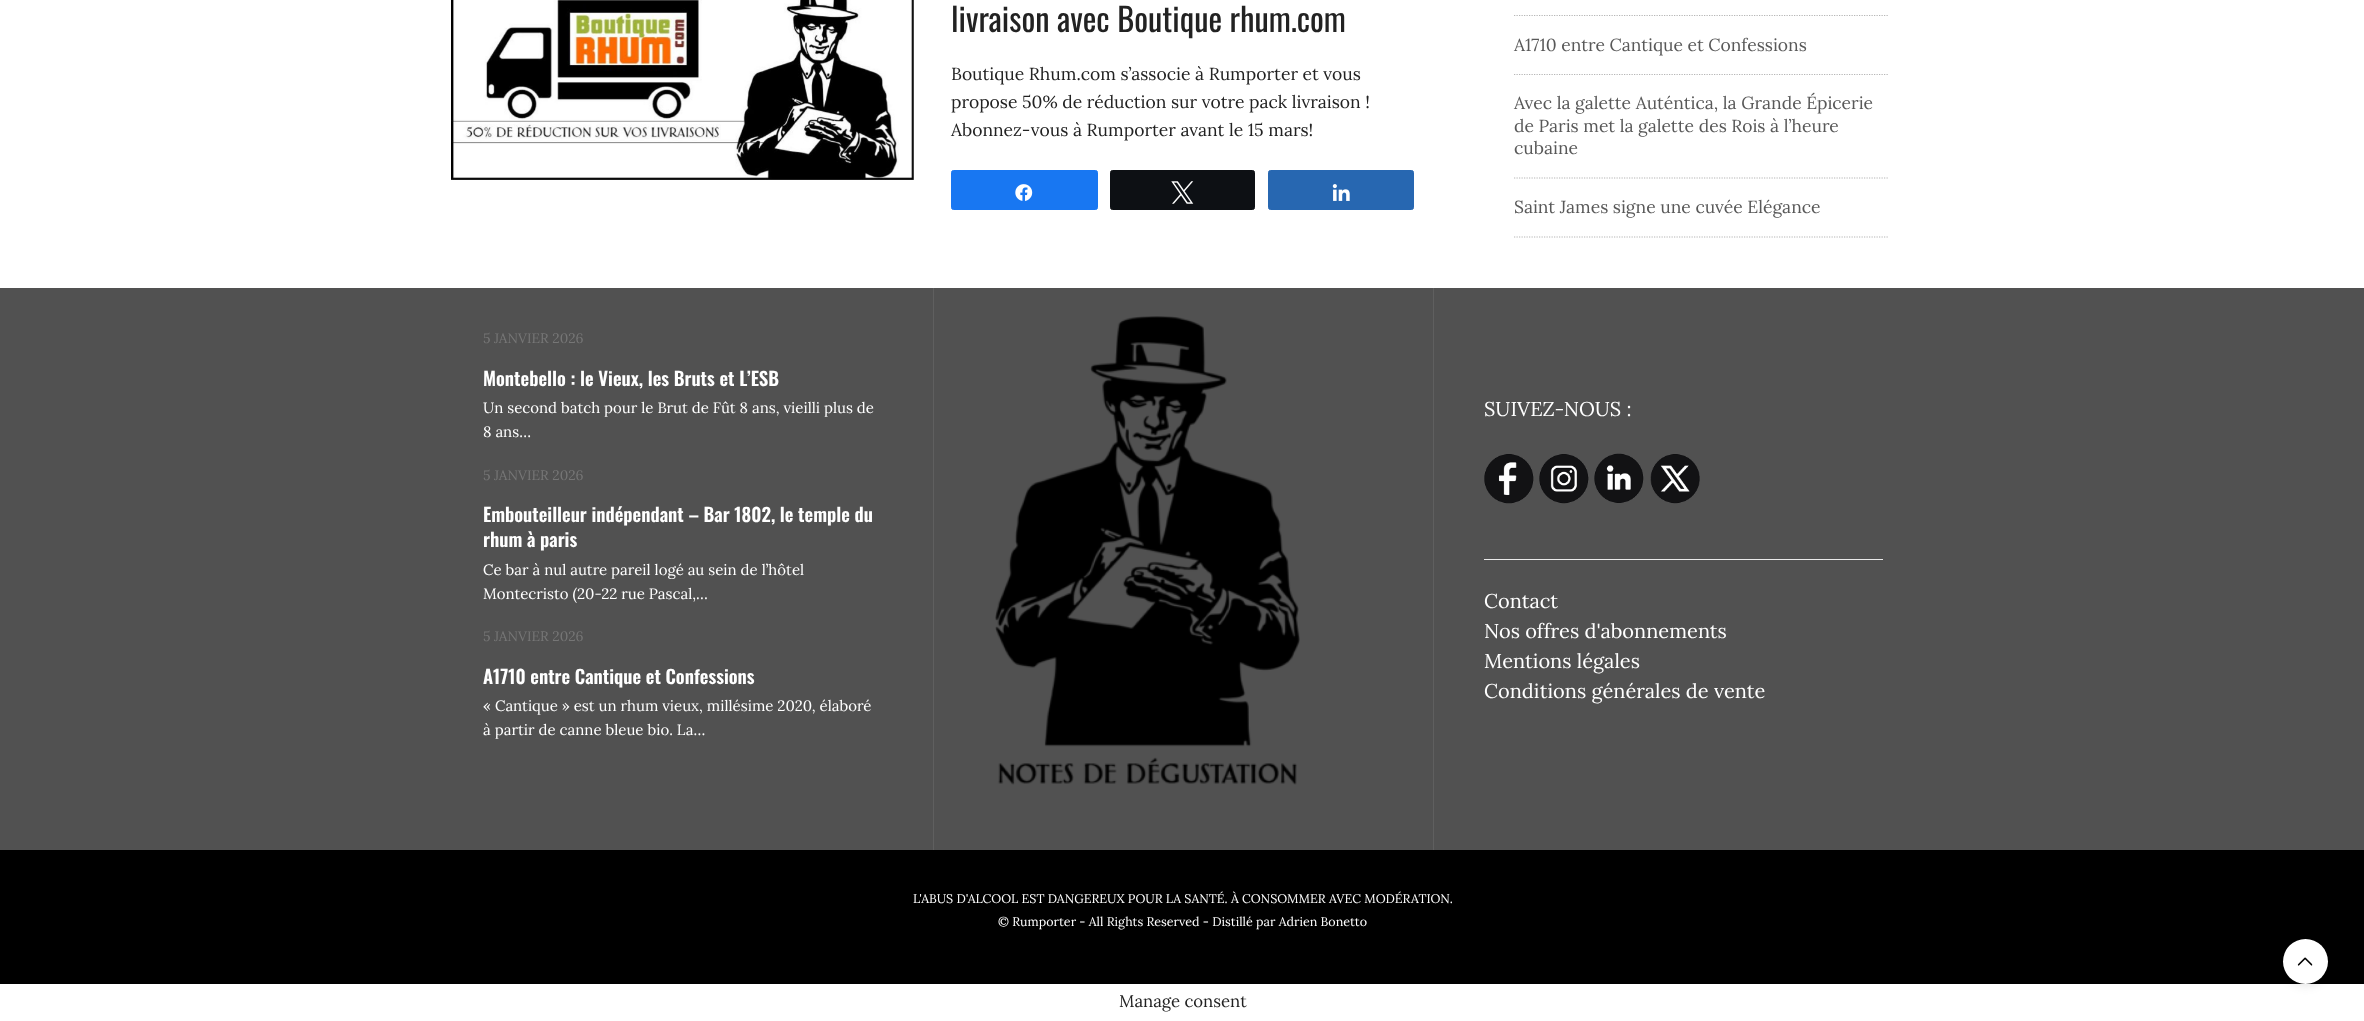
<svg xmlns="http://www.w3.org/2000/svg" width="2364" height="1021">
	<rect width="100%" height="100%" fill="#FFFFFF" />
	<image x="451" y="0" width="463" height="180" href="assets/img1.png" />
	<text x="951" y="32" font-family="Oswald" font-size="32.5" fill="#222222">livraison avec Boutique rhum.com</text>
	<g font-family="Lora" font-size="17.5" fill="#222222">
		<text x="951" y="80">Boutique Rhum.com s’associe à Rumporter et vous</text>
		<text x="951" y="108">propose 50% de réduction sur votre pack livraison !</text>
		<text x="951" y="136">Abonnez-vous à Rumporter avant le 15 mars!</text>
	</g>
	<rect x="951.5" y="170.5" width="146" height="39" rx="2" fill="#1877F2" stroke="#1877F2" />
	<image x="1015" y="184" width="18" height="17" href="assets/img2.png" />
	<rect x="1110.5" y="170.5" width="144" height="39" rx="2" fill="#0D1014" stroke="#0D1014" />
	<image x="1171" y="181" width="23" height="23" href="assets/img3.png" />
	<rect x="1268.5" y="170.5" width="145" height="39" rx="2" fill="#2767B1" stroke="#2767B1" />
	<image x="1332" y="184" width="18" height="17" href="assets/img4.png" />
	<path d="M1514 15.5H1889" fill="none" stroke="#B6B6B6" stroke-width="1.2" stroke-dasharray="1.25 1.25" />
	<path d="M1514 74.5H1889" fill="none" stroke="#B6B6B6" stroke-width="1.2" stroke-dasharray="1.25 1.25" />
	<text x="1514" y="51" font-family="Lora" font-size="17.5" fill="#595959">A1710 entre Cantique et Confessions</text>
	<path d="M1514 178H1889" fill="none" stroke="#B6B6B6" stroke-width="1.2" stroke-dasharray="1.25 1.25" />
	<g font-family="Lora" font-size="17.5" fill="#595959">
		<text x="1514" y="109">Avec la galette Auténtica, la Grande Épicerie</text>
		<text x="1514" y="132">de Paris met la galette des Rois à l’heure</text>
		<text x="1514" y="154">cubaine</text>
	</g>
	<path d="M1514 237H1889" fill="none" stroke="#B6B6B6" stroke-width="1.2" stroke-dasharray="1.25 1.25" />
	<text x="1514" y="213" font-family="Lora" font-size="17.5" fill="#595959">Saint James signe une cuvée Elégance</text>
	<rect x="0" y="288" width="2364" height="562" fill="#515151" />
	<text x="483" y="343" font-family="Lora" font-size="13.75" fill="#767676">5 JANVIER 2026</text>
	<text x="483" y="386" font-family="Oswald" font-size="18.75" font-weight="600" fill="#FFFFFF">Montebello : le Vieux, les Bruts et L’ESB</text>
	<g font-family="Lora" font-size="15" fill="#FFFFFF">
		<text x="483" y="413">Un second batch pour le Brut de Fût 8 ans, vieilli plus de</text>
		<text x="483" y="437">8 ans…</text>
	</g>
	<text x="483" y="480" font-family="Lora" font-size="13.75" fill="#767676">5 JANVIER 2026</text>
	<g font-family="Oswald" font-size="18.75" font-weight="600" fill="#FFFFFF">
		<text x="483" y="522">Embouteilleur indépendant – Bar 1802, le temple du</text>
		<text x="483" y="547">rhum à paris</text>
	</g>
	<g font-family="Lora" font-size="15" fill="#FFFFFF">
		<text x="483" y="575">Ce bar à nul autre pareil logé au sein de l’hôtel</text>
		<text x="483" y="599">Montecristo (20-22 rue Pascal,…</text>
	</g>
	<text x="483" y="641" font-family="Lora" font-size="13.75" fill="#767676">5 JANVIER 2026</text>
	<text x="483" y="684" font-family="Oswald" font-size="18.75" font-weight="600" fill="#FFFFFF">A1710 entre Cantique et Confessions</text>
	<g font-family="Lora" font-size="15" fill="#FFFFFF">
		<text x="483" y="711">« Cantique » est un rhum vieux, millésime 2020, élaboré</text>
		<text x="483" y="735">à partir de canne bleue bio. La…</text>
	</g>
	<rect x="933" y="288" width="1" height="562" fill="#5F5F5F" />
	<image x="995" y="316" width="305" height="469" href="assets/img5.png" />
	<rect x="1433" y="288" width="1" height="562" fill="#5F5F5F" />
	<text x="1484" y="416" font-family="Lora" font-size="20" fill="#FFFFFF">SUIVEZ-NOUS :</text>
	<image x="1484" y="454" width="50" height="50" href="assets/img6.png" />
	<image x="1539" y="454" width="50" height="50" href="assets/img7.png" />
	<image x="1594" y="453" width="50" height="50" href="assets/img8.png" />
	<image x="1650" y="454" width="50" height="50" href="assets/img9.png" />
	<rect x="1484" y="559" width="399" height="1" fill="#EAEAEA" />
	<g font-family="Lora" font-size="20" fill="#FFFFFF">
		<text x="1484" y="608">Contact</text>
		<text x="1484" y="638">Nos offres d'abonnements</text>
		<text x="1484" y="668">Mentions légales</text>
		<text x="1484" y="698">Conditions générales de vente</text>
	</g>
	<rect x="0" y="850" width="2364" height="134" fill="#000000" />
	<g font-family="Lora" font-size="12.5" fill="#FFFFFF">
		<text x="913" y="903">L'ABUS D'ALCOOL EST DANGEREUX POUR LA SANTÉ. À CONSOMMER AVEC MODÉRATION.</text>
		<text x="998" y="926">© Rumporter - All Rights Reserved - Distillé par Adrien Bonetto</text>
	</g>
	<text x="1119" y="1007" font-family="Lora" font-size="16.75" fill="#222222">Manage consent</text>
	<rect x="2283" y="941" width="45" height="45" rx="22.5" fill="#000000" fill-opacity="0.1" filter="blur(5px)" />
	<circle cx="2305.5" cy="961.5" r="22.5" fill="#FFFFFF" />
	<image x="2297" y="957" width="16" height="9" href="assets/img10.png" />
</svg>
